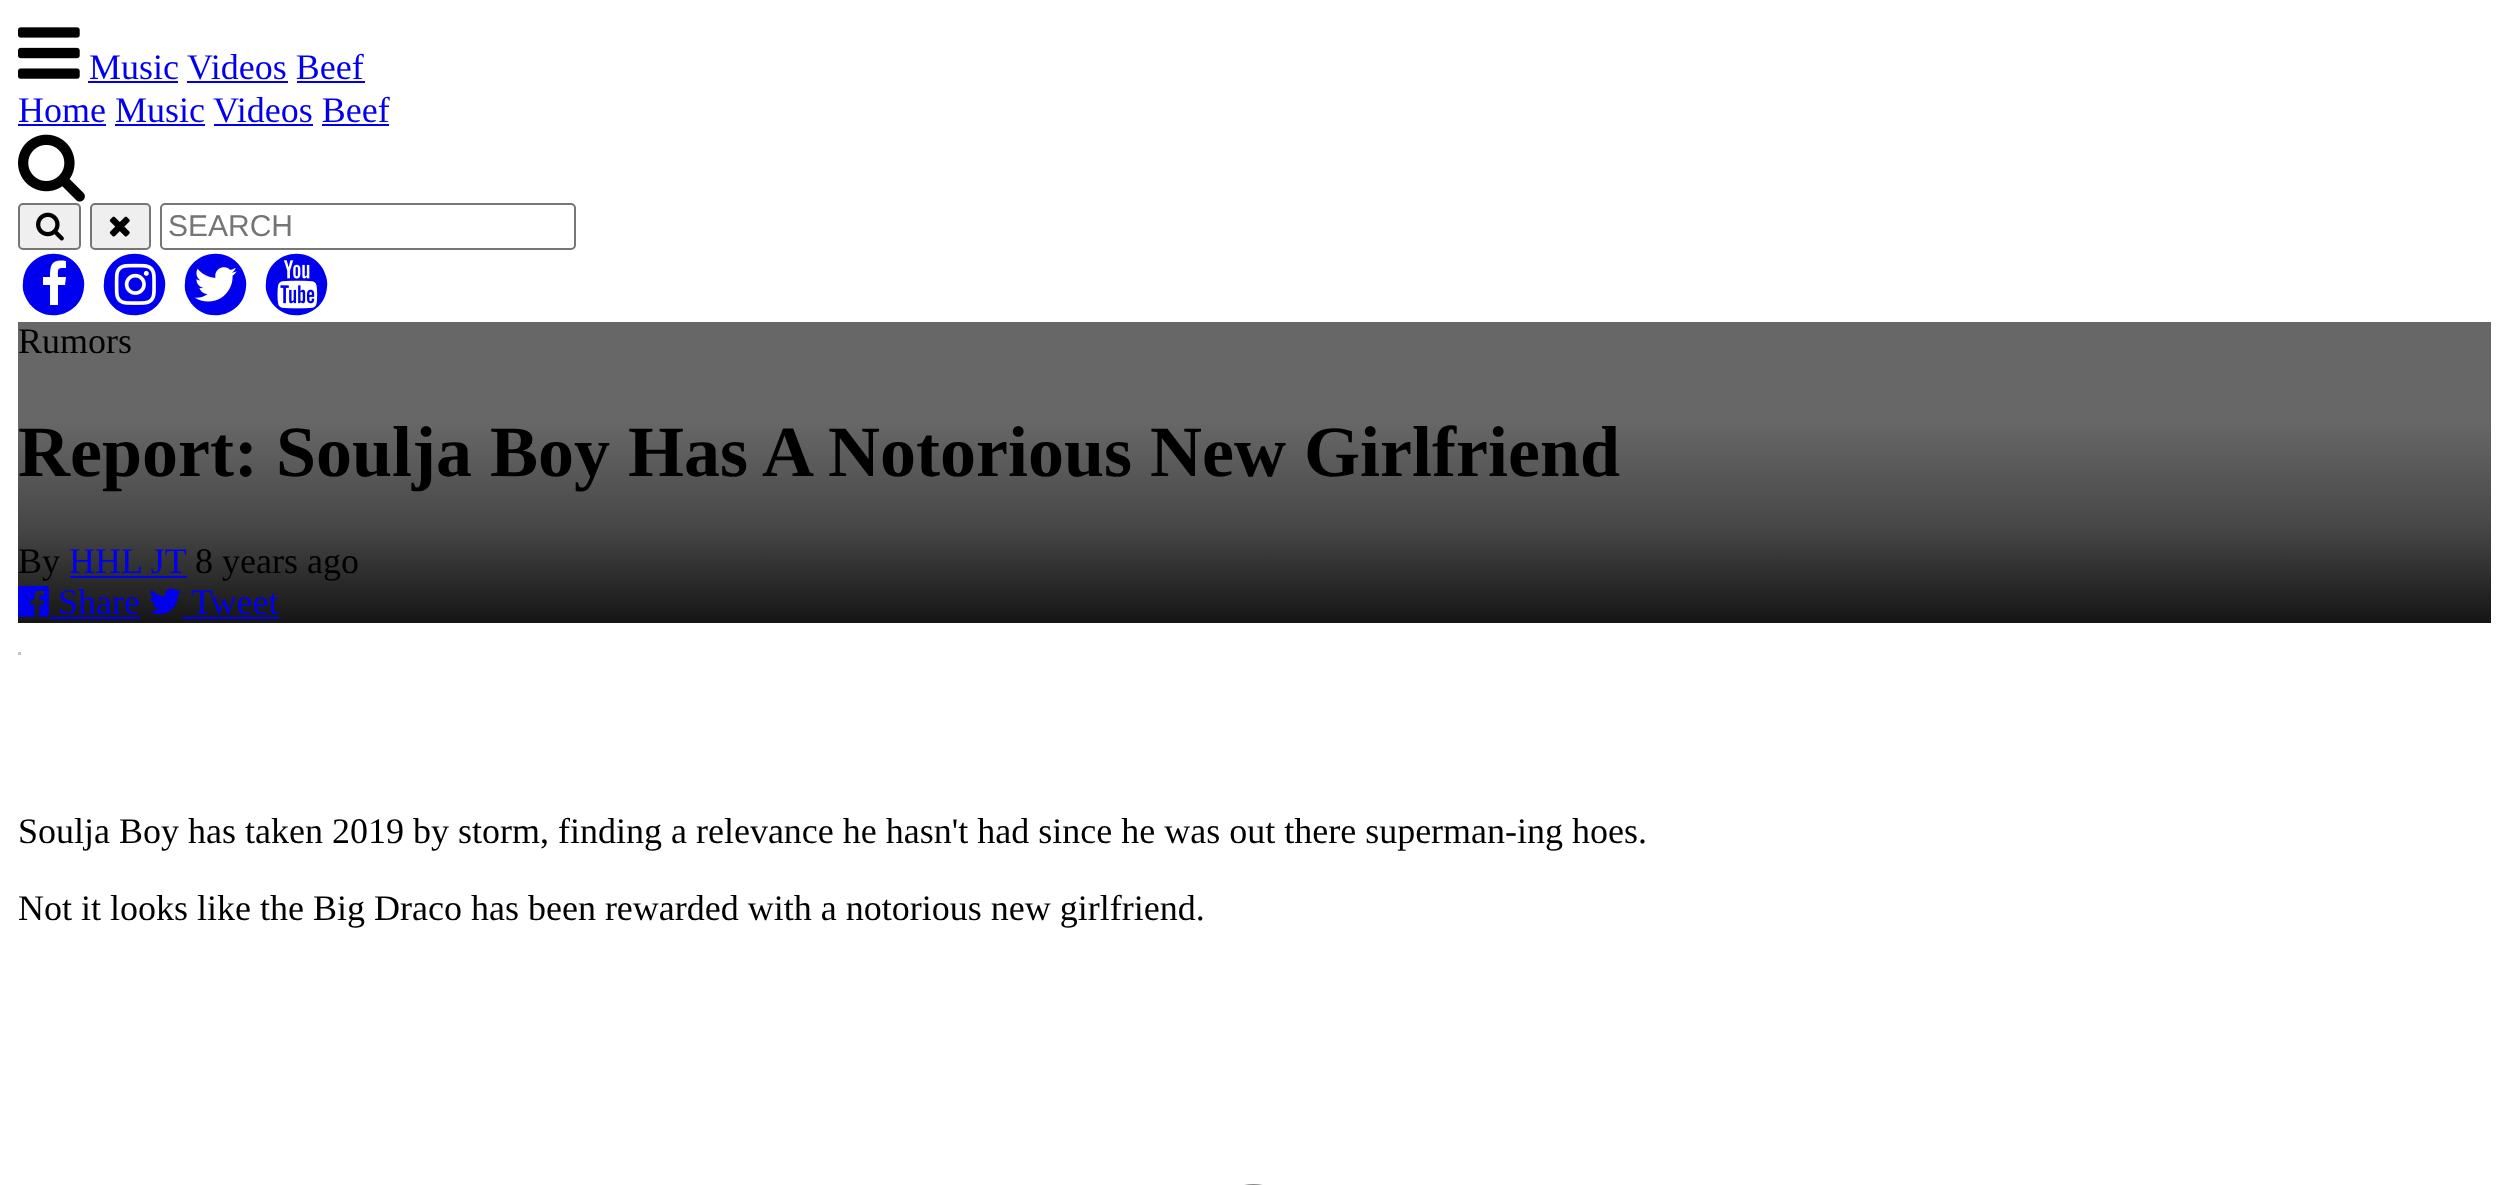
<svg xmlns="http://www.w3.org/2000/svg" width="2507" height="1185">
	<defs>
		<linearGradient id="g1" gradientUnits="userSpaceOnUse" x1="1254" y1="322" x2="1254" y2="623"><stop offset="0" stop-color="#676767" /><stop offset="0.33" stop-color="#676767" /><stop offset="0.67" stop-color="#484848" /><stop offset="1" stop-color="#151515" /></linearGradient>
	</defs>
	<rect width="100%" height="100%" fill="#FFFFFF" />
	<image x="18" y="27" width="62" height="52" href="assets/img1.png" />
	<text x="89" y="79" font-family="Liberation Serif" font-size="36" fill="#0000EE">Music</text>
	<rect x="88" y="81" width="90" height="2" fill="#0000EE" />
	<text x="187" y="79" font-family="Liberation Serif" font-size="36" fill="#0000EE">Videos Beef</text>
	<rect x="187" y="81" width="101" height="2" fill="#0000EE" />
	<rect x="297" y="81" width="68" height="2" fill="#0000EE" />
	<text x="18" y="122" font-family="Liberation Serif" font-size="36" fill="#0000EE">Home Music</text>
	<rect x="18" y="124" width="88" height="2" fill="#0000EE" />
	<text x="213" y="122" font-family="Liberation Serif" font-size="36" fill="#0000EE">Videos Beef</text>
	<rect x="214" y="124" width="99" height="2" fill="#0000EE" />
	<rect x="115" y="124" width="90" height="2" fill="#0000EE" />
	<rect x="322" y="124" width="67" height="2" fill="#0000EE" />
	<image x="18" y="134" width="67" height="68" href="assets/img2.png" />
	<rect x="19" y="204" width="61" height="45" rx="4" fill="#EFEFEF" stroke="#767676" stroke-width="2" />
	<image x="36" y="212" width="28" height="29" href="assets/img3.png" />
	<rect x="91" y="204" width="59" height="45" rx="4" fill="#EFEFEF" stroke="#767676" stroke-width="2" />
	<image x="109" y="216" width="21" height="21" href="assets/img4.png" />
	<rect x="161" y="204" width="414" height="45" rx="4" fill="none" stroke="#767676" stroke-width="2" />
	<text x="168" y="236" font-family="Liberation Sans" font-size="30" fill="#757575">SEARCH</text>
	<path d="M80 269C83 275 85 281 84 287C82 317 42 326 27 300C24 295 22 289 23 283C24 252 65 243 80 269Z" fill="#0000EE" />
	<path d="M66 261V268C57 268 58 268 58 277H66L65 285H58V305H50V285H43V277H50C50 264 52 259 66 261Z" fill="#FFFFFF" />
	<path d="M161 269C164 275 166 281 165 287C163 317 123 326 108 300C105 295 103 289 104 283C105 252 146 243 161 269Z" fill="#0000EE" />
	<image x="114" y="263" width="42" height="42" href="assets/img5.png" />
	<path d="M242 269C245 275 247 281 246 287C244 317 204 326 189 300C186 295 184 289 185 283C186 252 227 243 242 269Z" fill="#0000EE" />
	<image x="194" y="267" width="43" height="35" href="assets/img6.png" />
	<path d="M323 269C326 275 328 281 327 287C325 317 285 326 270 300C267 295 265 289 266 283C267 252 308 243 323 269Z" fill="#0000EE" />
	<image x="277" y="260" width="41" height="49" href="assets/img7.png" />
	<rect x="18" y="322" width="2473" height="301" fill="url(#g1)" />
	<text x="18" y="353" font-family="Liberation Serif" font-size="36" fill="#000000">Rumors</text>
	<text x="18" y="476" font-family="Liberation Serif" font-size="72" font-weight="700" fill="#000000">Report: Soulja Boy Has A Notorious New Girlfriend</text>
	<text x="18" y="573" font-family="Liberation Serif" font-size="36" fill="#000000">By</text>
	<text x="69" y="573" font-family="Liberation Serif" font-size="36" fill="#0000EE">HHL JT</text>
	<rect x="70" y="576" width="117" height="2" fill="#0000EE" />
	<text x="195" y="573" font-family="Liberation Serif" font-size="36" fill="#000000">8 years ago</text>
	<image x="18" y="585" width="31" height="32" href="assets/img8.png" />
	<text x="58" y="614" font-family="Liberation Serif" font-size="36" fill="#0000EE">Share</text>
	<rect x="50" y="617" width="90" height="2" fill="#0000EE" />
	<image x="149" y="588" width="32" height="27" href="assets/img9.png" />
	<text x="191" y="614" font-family="Liberation Serif" font-size="36" fill="#0000EE">Tweet</text>
	<rect x="182" y="617" width="97" height="2" fill="#0000EE" />
	<rect x="18" y="652" width="3" height="3" fill="#C3C3C3" />
	<g font-family="Liberation Serif" font-size="36" fill="#000000">
		<text x="18" y="843">Soulja Boy has taken 2019 by storm, finding a relevance he hasn't had since he was out there superman-ing hoes.</text>
		<text x="18" y="920">Not it looks like the Big Draco has been rewarded with a notorious new girlfriend.</text>
	</g>
	<rect x="1230" y="1185" width="47" height="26" rx="23.5" fill="none" stroke="#F9F9F9" stroke-width="2" />
	<rect x="1230" y="1185" width="47" height="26" rx="23.5" fill="none" stroke="#888888" stroke-width="2" />
</svg>
